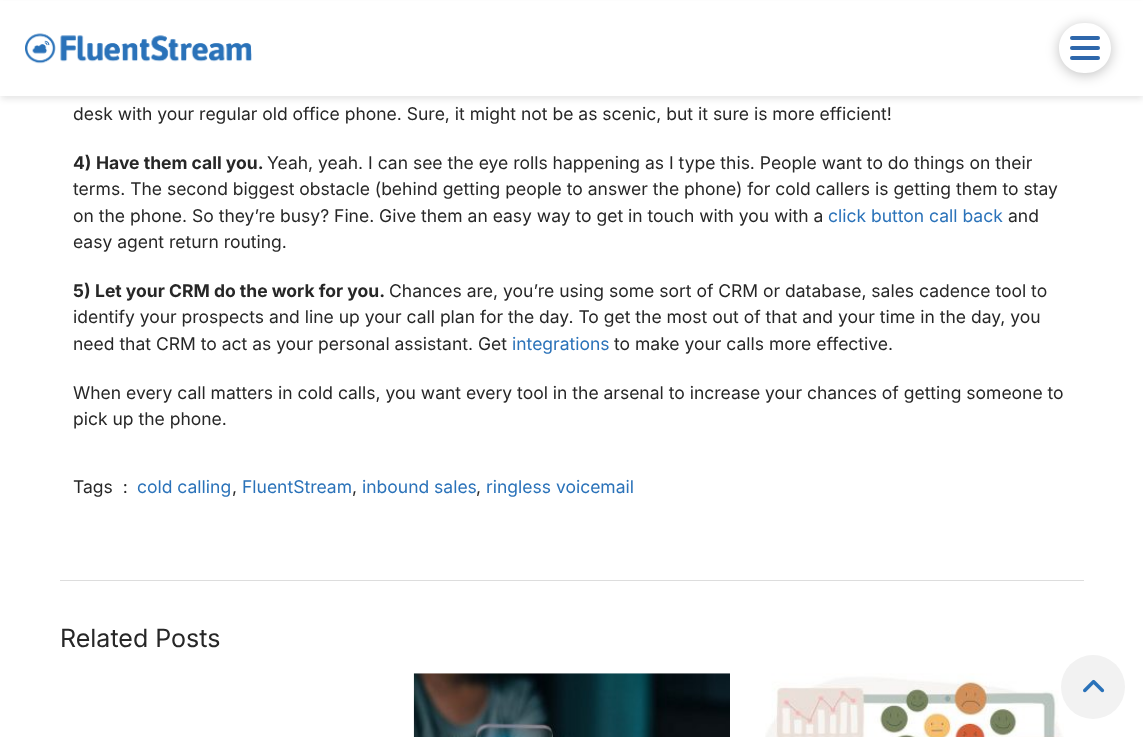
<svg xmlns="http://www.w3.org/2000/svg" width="1143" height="737">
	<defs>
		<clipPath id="clip1"><path d="M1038 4H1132V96H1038ZM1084 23H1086C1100 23 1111 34 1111 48C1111 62 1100 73 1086 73H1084C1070 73 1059 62 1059 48C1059 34 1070 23 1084 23Z" clip-rule="evenodd" /></clipPath>
	</defs>
	<rect width="100%" height="100%" fill="#FFFFFF" />
	<rect x="1" y="5" width="1142" height="94" fill="#000000" fill-opacity="0.1" filter="blur(3px)" />
	<rect x="0" y="1" width="1143" height="95" fill="#FFFFFF" />
	<image x="25" y="33" width="227" height="31" href="assets/img1.png" />
	<rect x="251" y="23" width="868" height="50" rx="25" fill="#FFFFFF" />
	<g clip-path="url(#clip1)">
		<rect x="1059" y="25" width="52" height="50" rx="25" fill="#000000" fill-opacity="0.25" filter="blur(6.5px)" />
	</g>
	<rect x="1070" y="36" width="30" height="4" rx="2" fill="#2E67AB" />
	<rect x="1070" y="46" width="30" height="4" rx="2" fill="#2E67AB" />
	<rect x="1070" y="56" width="30" height="4" rx="2" fill="#2E67AB" />
	<image x="765" y="673" width="299" height="64" href="assets/img4.png" />
	<circle cx="1093" cy="687" r="32" fill="#F2F2F2" />
	<image x="1083" y="679" width="22" height="14" href="assets/img2.png" />
	<text x="73" y="120" font-family="Inter" font-size="17.5" fill="#272727">desk with your regular old office phone. Sure, it might not be as scenic, but it sure is more efficient!</text>
	<g font-family="Inter" font-size="17.5" font-weight="700" fill="#272727">
		<text x="73" y="169">4)</text>
		<text x="96" y="169">Have them call you.</text>
	</g>
	<g font-family="Inter" font-size="17.5" fill="#272727">
		<text x="267" y="169">Yeah, yeah. I can see the eye rolls happening as I type this. People want to do things on their</text>
		<text x="73" y="195">terms. The second biggest obstacle (behind getting people to answer the phone) for cold callers is getting them to stay</text>
		<text x="73" y="222">on the phone. So they’re busy? Fine. Give them an easy way to get in touch with you with a</text>
	</g>
	<text x="828" y="222" font-family="Inter" font-size="17.5" fill="#2A72B9">click button call back</text>
	<g font-family="Inter" font-size="17.5" fill="#272727">
		<text x="1008" y="222">and</text>
		<text x="73" y="248">easy agent return routing.</text>
	</g>
	<g font-family="Inter" font-size="17.5" font-weight="700" fill="#272727">
		<text x="73" y="297">5)</text>
		<text x="95" y="297">Let your CRM do the work for you.</text>
	</g>
	<g font-family="Inter" font-size="17.5" fill="#272727">
		<text x="389" y="297">Chances are, you’re using some sort of CRM or database, sales cadence tool to</text>
		<text x="73" y="323">identify your prospects and line up your call plan for the day. To get the most out of that and your time in the day, you</text>
		<text x="73" y="350">need that CRM to act as your personal assistant. Get</text>
	</g>
	<text x="512" y="350" font-family="Inter" font-size="17.5" fill="#2A72B9">integrations</text>
	<g font-family="Inter" font-size="17.5" fill="#272727">
		<text x="614" y="350">to make your calls more effective.</text>
		<text x="73" y="399">When every call matters in cold calls, you want every tool in the arsenal to increase your chances of getting someone to</text>
		<text x="73" y="425">pick up the phone.</text>
		<text x="73" y="493" xml:space="preserve">Tags  :</text>
	</g>
	<text x="137" y="493" font-family="Inter" font-size="17.5" fill="#2A72B9">cold calling</text>
	<text x="232" y="493" font-family="Inter" font-size="17.5" fill="#272727">,</text>
	<text x="242" y="493" font-family="Inter" font-size="17.5" fill="#2A72B9">FluentStream</text>
	<text x="352" y="493" font-family="Inter" font-size="17.5" fill="#272727">,</text>
	<text x="362" y="493" font-family="Inter" font-size="17.5" fill="#2A72B9">inbound sales</text>
	<text x="476" y="493" font-family="Inter" font-size="17.5" fill="#272727">,</text>
	<text x="486" y="493" font-family="Inter" font-size="17.5" fill="#2A72B9">ringless voicemail</text>
	<rect x="60" y="580" width="1024" height="1" fill="#DDDDDD" />
	<text x="60" y="647" font-family="Inter" font-size="25" fill="#272727">Related Posts</text>
	<image x="413" y="673" width="317" height="64" href="assets/img3.png" />
</svg>
